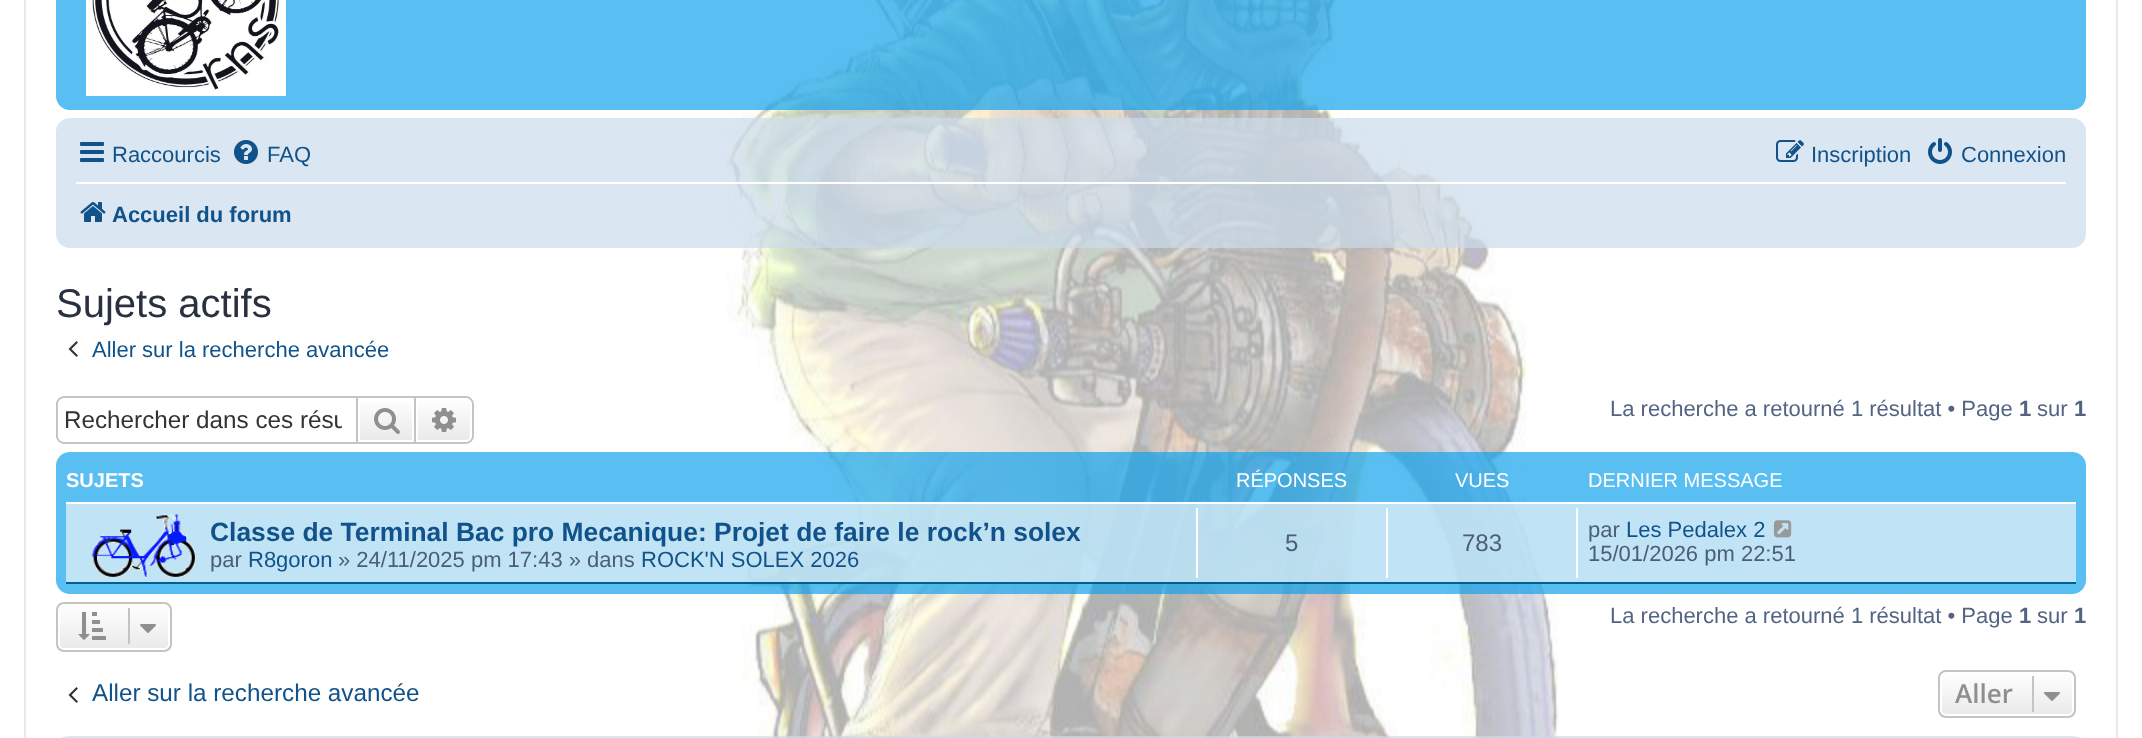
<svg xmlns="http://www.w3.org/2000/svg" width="2142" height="738">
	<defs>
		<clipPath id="clip1"><rect x="64" y="406" width="278" height="28" /></clipPath>
		<linearGradient id="g1" gradientUnits="userSpaceOnUse" x1="386" y1="398" x2="386" y2="442"><stop offset="0" stop-color="#FFFFFF" /><stop offset="1" stop-color="#E9E9E9" /></linearGradient>
		<linearGradient id="g2" gradientUnits="userSpaceOnUse" x1="444" y1="398" x2="444" y2="442"><stop offset="0" stop-color="#FFFFFF" /><stop offset="1" stop-color="#E9E9E9" /></linearGradient>
		<clipPath id="clip2"><rect x="56" y="602" width="116" height="50" rx="8" /></clipPath>
		<linearGradient id="g3" gradientUnits="userSpaceOnUse" x1="114" y1="604" x2="114" y2="650"><stop offset="0" stop-color="#FFFFFF" /><stop offset="1" stop-color="#E9E9E9" /></linearGradient>
		<clipPath id="clip3"><rect x="1938" y="670" width="138" height="48" rx="8" /></clipPath>
		<linearGradient id="g4" gradientUnits="userSpaceOnUse" x1="2007" y1="672" x2="2007" y2="716"><stop offset="0" stop-color="#FFFFFF" /><stop offset="1" stop-color="#E9E9E9" /></linearGradient>
	</defs>
	<rect width="100%" height="100%" fill="#FFFFFF" />
	<image x="726" y="0" width="833" height="738" href="assets/img1.png" />
	<rect x="25" y="-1" width="2092" height="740" fill="none" stroke="#E6E9ED" stroke-width="2" />
	<rect x="56" y="-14" width="2030" height="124" rx="14" fill="#12A3EB" fill-opacity="0.7" />
	<image x="86" y="0" width="200" height="96" href="assets/img2.png" />
	<rect x="56" y="118" width="2030" height="130" rx="14" fill="#CADCEB" fill-opacity="0.7" />
	<image x="80" y="142" width="24" height="20" href="assets/img3.png" />
	<text x="112" y="162" font-family="Liberation Sans" font-size="22" fill="#105289">Raccourcis</text>
	<image x="234" y="140" width="24" height="24" href="assets/img4.png" />
	<text x="267" y="162" font-family="Liberation Sans" font-size="22" fill="#105289">FAQ</text>
	<image x="1776" y="140" width="28" height="22" href="assets/img5.png" />
	<text x="1811" y="162" font-family="Liberation Sans" font-size="22" fill="#105289">Inscription</text>
	<image x="1928" y="138" width="24" height="26" href="assets/img6.png" />
	<text x="1961" y="162" font-family="Liberation Sans" font-size="22" fill="#105289">Connexion</text>
	<rect x="76" y="182" width="1990" height="2" fill="#FFFFFF" />
	<image x="80" y="202" width="26" height="20" href="assets/img7.png" />
	<text x="112" y="222" font-family="Liberation Sans" font-size="22" font-weight="700" fill="#105289">Accueil du forum</text>
	<text x="56" y="317" font-family="Liberation Sans" font-size="40" fill="#28313F">Sujets actifs</text>
	<image x="68" y="341" width="10" height="16" href="assets/img8.png" />
	<text x="92" y="357" font-family="Liberation Sans" font-size="22" fill="#105289">Aller sur la recherche avancée</text>
	<path d="M64 396H356V444H64C60 444 56 440 56 436V404C56 400 60 396 64 396ZM64 398H356V442H64C61 442 58 439 58 436V404C58 401 61 398 64 398Z" fill="#C7C3BF" fill-rule="evenodd" />
	<g clip-path="url(#clip1)">
		<text x="64" y="428" font-family="Liberation Sans" font-size="24.25" fill="#333333">Rechercher dans ces résu</text>
	</g>
	<rect x="360" y="403" width="52" height="37" fill="url(#g1)" />
	<rect x="357" y="397" width="58" height="46" fill="none" stroke="#C7C3BF" stroke-width="2" />
	<image x="374" y="408" width="26" height="26" href="assets/img9.png" />
	<path d="M417 399H466C469 399 471 401 471 404V436C471 439 469 441 466 441H417Z" fill="url(#g2)" stroke="#FFFFFF" stroke-width="2" />
	<path d="M416 396H466C470 396 474 400 474 404V436C474 440 470 444 466 444H416ZM416 398H466C469 398 472 401 472 404V436C472 439 469 442 466 442H416Z" fill="#C7C3BF" fill-rule="evenodd" />
	<image x="432" y="408" width="24" height="24" href="assets/img10.png" />
	<text x="1610" y="416" font-family="Liberation Sans" font-size="22" fill="#536482">La recherche a retourné 1 résultat • Page</text>
	<text x="2019" y="416" font-family="Liberation Sans" font-size="22" font-weight="700" fill="#536482">1</text>
	<text x="2037" y="416" font-family="Liberation Sans" font-size="22" fill="#536482">sur</text>
	<text x="2074" y="416" font-family="Liberation Sans" font-size="22" font-weight="700" fill="#536482">1</text>
	<rect x="56" y="452" width="2030" height="142" rx="14" fill="#12A3EB" fill-opacity="0.7" />
	<text x="66" y="487" font-family="Liberation Sans" font-size="20" font-weight="700" fill="#FFFFFF">SUJETS</text>
	<g font-family="Liberation Sans" font-size="20" fill="#FFFFFF">
		<text x="1236" y="487">RÉPONSES</text>
		<text x="1455" y="487">VUES</text>
		<text x="1588" y="487">DERNIER MESSAGE</text>
	</g>
	<rect x="66" y="504" width="2010" height="78" fill="#ECF3F7" fill-opacity="0.7" />
	<rect x="66" y="502" width="2010" height="2" fill="#FFFFFF" />
	<rect x="66" y="582" width="2010" height="2" fill="#00608F" />
	<image x="91" y="514" width="104" height="64" href="assets/img11.png" />
	<text x="210" y="541" font-family="Liberation Sans" font-size="26.4" font-weight="700" fill="#105289">Classe de Terminal Bac pro Mecanique: Projet de faire le rock’n solex</text>
	<text x="210" y="567" font-family="Liberation Sans" font-size="22" fill="#4C5D77">par</text>
	<text x="248" y="567" font-family="Liberation Sans" font-size="22" fill="#105289">R8goron</text>
	<text x="338" y="567" font-family="Liberation Sans" font-size="22" fill="#4C5D77">» 24/11/2025 pm 17:43 » dans</text>
	<text x="641" y="567" font-family="Liberation Sans" font-size="22" fill="#105289">ROCK'N SOLEX 2026</text>
	<rect x="1196" y="508" width="2" height="70" fill="#FFFFFF" />
	<text x="1285" y="551" font-family="Liberation Sans" font-size="24" fill="#4C5D77">5</text>
	<rect x="1386" y="508" width="2" height="70" fill="#FFFFFF" />
	<text x="1462" y="551" font-family="Liberation Sans" font-size="24" fill="#4C5D77">783</text>
	<rect x="1576" y="508" width="2" height="70" fill="#FFFFFF" />
	<text x="1588" y="537" font-family="Liberation Sans" font-size="22" fill="#4C5D77">par</text>
	<text x="1626" y="537" font-family="Liberation Sans" font-size="22" fill="#105289">Les Pedalex 2</text>
	<image x="1774" y="520" width="18" height="18" href="assets/img12.png" />
	<text x="1588" y="561" font-family="Liberation Sans" font-size="22" fill="#4C5D77">15/01/2026 pm 22:51</text>
	<g clip-path="url(#clip2)">
		<rect x="56" y="604" width="116" height="46" fill="url(#g3)" />
	</g>
	<rect x="59" y="605" width="110" height="44" rx="5" fill="none" stroke="#FFFFFF" stroke-width="2" />
	<rect x="57" y="603" width="114" height="48" rx="7" fill="none" stroke="#C7C3BF" stroke-width="2" />
	<image x="78" y="612" width="28" height="28" href="assets/img13.png" />
	<rect x="128" y="608" width="2" height="36" fill="#C7C3BF" />
	<image x="140" y="624" width="16" height="9" href="assets/img14.png" />
	<text x="1610" y="623" font-family="Liberation Sans" font-size="22" fill="#536482">La recherche a retourné 1 résultat • Page</text>
	<text x="2019" y="623" font-family="Liberation Sans" font-size="22" font-weight="700" fill="#536482">1</text>
	<text x="2037" y="623" font-family="Liberation Sans" font-size="22" fill="#536482">sur</text>
	<text x="2074" y="623" font-family="Liberation Sans" font-size="22" font-weight="700" fill="#536482">1</text>
	<image x="68" y="687" width="10" height="16" href="assets/img8.png" />
	<text x="92" y="701" font-family="Liberation Sans" font-size="24.25" fill="#105289">Aller sur la recherche avancée</text>
	<g clip-path="url(#clip3)">
		<rect x="1938" y="672" width="138" height="44" fill="url(#g4)" />
	</g>
	<rect x="1941" y="673" width="132" height="42" rx="5" fill="none" stroke="#FFFFFF" stroke-width="2" />
	<rect x="1939" y="671" width="136" height="46" rx="7" fill="none" stroke="#C7C3BF" stroke-width="2" />
	<text x="1955" y="703" font-family="Open Sans" font-size="26" font-weight="600" fill="#8F8F8F">Aller</text>
	<rect x="2032" y="676" width="2" height="36" fill="#C7C3BF" />
	<image x="2044" y="692" width="16" height="9" href="assets/img15.png" />
	<rect x="56" y="736" width="2030" height="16" rx="14" fill="#CADCEB" fill-opacity="0.7" />
</svg>
